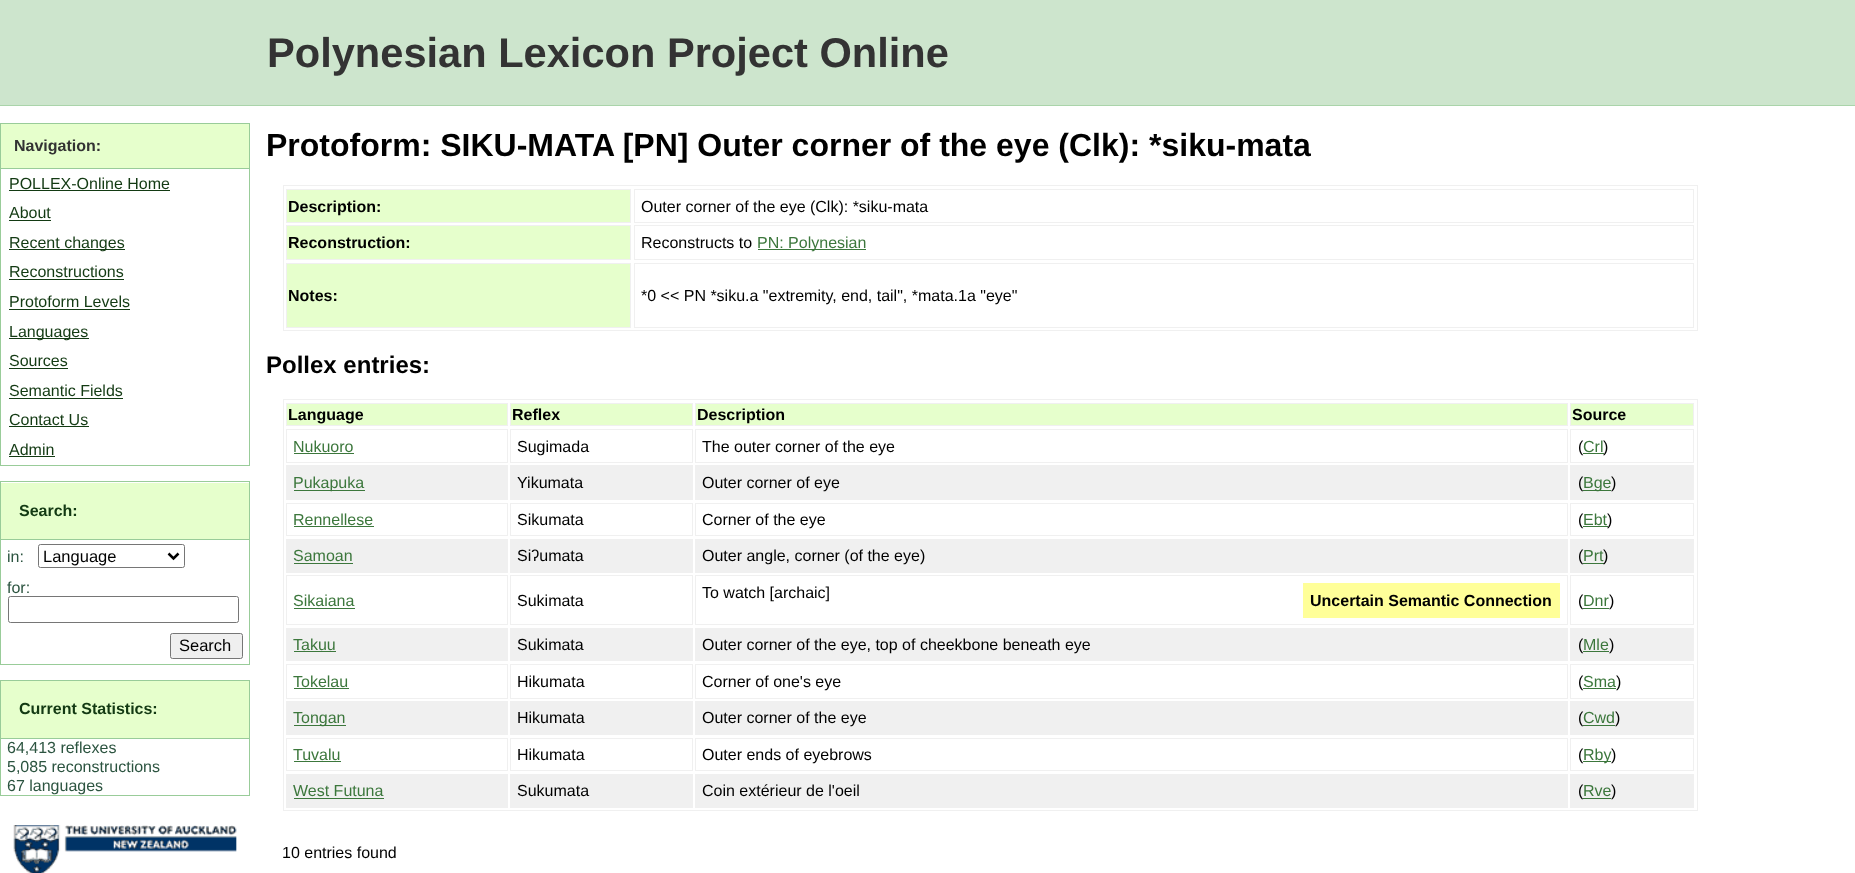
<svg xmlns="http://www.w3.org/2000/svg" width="1855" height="873">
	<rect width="100%" height="100%" fill="#FFFFFF" />
	<rect x="0" y="0" width="1855" height="105" fill="#CDE5CD" />
	<rect x="0" y="105" width="1855" height="1" fill="#AAD4AA" />
	<text x="267" y="67" font-family="Liberation Sans" font-size="41.6" font-weight="700" fill="#333333">Polynesian Lexicon Project Online</text>
	<rect x="0.5" y="123.5" width="249" height="342" fill="none" stroke="#99CC99" />
	<rect x="1" y="124" width="248" height="44" fill="#E6FFCC" />
	<rect x="1" y="168" width="248" height="1" fill="#99CC99" />
	<text x="14" y="151" font-family="Liberation Sans" font-size="16" font-weight="700" fill="#333333">Navigation:</text>
	<text x="9" y="189" font-family="Liberation Sans" font-size="16" fill="#133A13">POLLEX-Online Home</text>
	<rect x="9" y="190" width="161" height="1" fill="#133A13" />
	<text x="9" y="218" font-family="Liberation Sans" font-size="16" fill="#133A13">About</text>
	<rect x="9" y="220" width="42" height="1" fill="#133A13" />
	<rect x="9" y="249" width="116" height="1" fill="#133A13" />
	<g font-family="Liberation Sans" font-size="16" fill="#133A13">
		<text x="9" y="248">Recent changes</text>
		<text x="9" y="277">Reconstructions</text>
	</g>
	<rect x="9" y="279" width="115" height="1" fill="#133A13" />
	<text x="9" y="307" font-family="Liberation Sans" font-size="16" fill="#133A13">Protoform Levels</text>
	<rect x="9" y="309" width="121" height="1" fill="#133A13" />
	<rect x="9" y="338" width="80" height="1" fill="#133A13" />
	<g font-family="Liberation Sans" font-size="16" fill="#133A13">
		<text x="9" y="337">Languages</text>
		<text x="9" y="366">Sources</text>
	</g>
	<rect x="9" y="368" width="59" height="1" fill="#133A13" />
	<text x="9" y="396" font-family="Liberation Sans" font-size="16" fill="#133A13">Semantic Fields</text>
	<rect x="9" y="398" width="114" height="1" fill="#133A13" />
	<text x="9" y="425" font-family="Liberation Sans" font-size="16" fill="#133A13">Contact Us</text>
	<rect x="9" y="426" width="80" height="1" fill="#133A13" />
	<text x="9" y="455" font-family="Liberation Sans" font-size="16" fill="#133A13">Admin</text>
	<rect x="9" y="456" width="46" height="1" fill="#133A13" />
	<rect x="0.5" y="481.5" width="249" height="183" fill="none" stroke="#99CC99" />
	<rect x="1" y="483" width="248" height="56" fill="#E6FFCC" />
	<rect x="1" y="539" width="248" height="1" fill="#99CC99" />
	<text x="19" y="516" font-family="Liberation Sans" font-size="16" font-weight="700" fill="#133A13">Search:</text>
	<text x="7" y="562" font-family="Liberation Sans" font-size="16" fill="#2C5440">in:</text>
	<rect x="38.5" y="544.5" width="146" height="23" rx="2" fill="none" stroke="#767676" />
	<path d="M168.5 553.5L173.5 558.5L178.5 553.5" fill="none" stroke="#000000" stroke-width="2.5" />
	<text x="43" y="562" font-family="Liberation Sans" font-size="16.5" fill="#000000">Language</text>
	<text x="7" y="593" font-family="Liberation Sans" font-size="16" fill="#2C5440">for:</text>
	<rect x="8.5" y="596.5" width="230" height="26" rx="2" fill="none" stroke="#767676" />
	<rect x="170.5" y="633.5" width="72" height="25" rx="2" fill="#EFEFEF" stroke="#767676" />
	<text x="179" y="651" font-family="Liberation Sans" font-size="16.5" fill="#000000">Search</text>
	<rect x="0.5" y="680.5" width="249" height="115" fill="none" stroke="#99CC99" />
	<rect x="1" y="681" width="248" height="57" fill="#E6FFCC" />
	<rect x="1" y="738" width="248" height="1" fill="#99CC99" />
	<text x="19" y="714" font-family="Liberation Sans" font-size="16" font-weight="700" fill="#133A13">Current Statistics:</text>
	<g font-family="Liberation Sans" font-size="16" fill="#2C5440">
		<text x="7" y="753">64,413 reflexes</text>
		<text x="7" y="772">5,085 reconstructions</text>
		<text x="7" y="791">67 languages</text>
	</g>
	<image x="13" y="825" width="224" height="48" href="assets/img1.png" />
	<text x="266" y="156" font-family="Liberation Sans" font-size="32" font-weight="700" fill="#000000">Protoform: SIKU-MATA [PN] Outer corner of the eye (Clk): *siku-mata</text>
	<rect x="283.5" y="185.5" width="1414" height="145" fill="none" stroke="#F0F0F0" />
	<rect x="286.5" y="189.5" width="344" height="33" fill="#E6FFCC" stroke="#F0F0F0" />
	<text x="288" y="212" font-family="Liberation Sans" font-size="16" font-weight="700" fill="#000000">Description:</text>
	<rect x="634.5" y="189.5" width="1059" height="33" fill="none" stroke="#F0F0F0" />
	<text x="641" y="212" font-family="Liberation Sans" font-size="16" fill="#000000">Outer corner of the eye (Clk): *siku-mata</text>
	<rect x="286.5" y="225.5" width="344" height="34" fill="#E6FFCC" stroke="#F0F0F0" />
	<text x="288" y="248" font-family="Liberation Sans" font-size="16" font-weight="700" fill="#000000">Reconstruction:</text>
	<rect x="634.5" y="225.5" width="1059" height="34" fill="none" stroke="#F0F0F0" />
	<text x="641" y="248" font-family="Liberation Sans" font-size="16" fill="#000000">Reconstructs to</text>
	<rect x="758" y="249" width="108" height="1" fill="#3C773C" />
	<text x="757" y="248" font-family="Liberation Sans" font-size="16" fill="#3C773C">PN: Polynesian</text>
	<rect x="286.5" y="263.5" width="344" height="64" fill="#E6FFCC" stroke="#F0F0F0" />
	<text x="288" y="301" font-family="Liberation Sans" font-size="16" font-weight="700" fill="#000000">Notes:</text>
	<rect x="634.5" y="263.5" width="1059" height="64" fill="none" stroke="#F0F0F0" />
	<text x="641" y="301" font-family="Liberation Sans" font-size="16" fill="#000000">*0 &lt;&lt; PN *siku.a "extremity, end, tail", *mata.1a "eye"</text>
	<text x="266" y="373" font-family="Liberation Sans" font-size="24" font-weight="700" fill="#000000">Pollex entries:</text>
	<rect x="283.5" y="399.5" width="1414" height="411" fill="none" stroke="#F0F0F0" />
	<rect x="286.5" y="403.5" width="221" height="22" fill="#E6FFCC" stroke="#F0F0F0" />
	<text x="288" y="420" font-family="Liberation Sans" font-size="16" font-weight="700" fill="#000000">Language</text>
	<rect x="510.5" y="403.5" width="182" height="22" fill="#E6FFCC" stroke="#F0F0F0" />
	<text x="512" y="420" font-family="Liberation Sans" font-size="16" font-weight="700" fill="#000000">Reflex</text>
	<rect x="695.5" y="403.5" width="872" height="22" fill="#E6FFCC" stroke="#F0F0F0" />
	<text x="697" y="420" font-family="Liberation Sans" font-size="16" font-weight="700" fill="#000000">Description</text>
	<rect x="1570.5" y="403.5" width="123" height="22" fill="#E6FFCC" stroke="#F0F0F0" />
	<text x="1572" y="420" font-family="Liberation Sans" font-size="16" font-weight="700" fill="#000000">Source</text>
	<rect x="286.5" y="429.5" width="221" height="33" fill="none" stroke="#F0F0F0" />
	<text x="293" y="452" font-family="Liberation Sans" font-size="16" fill="#3C773C">Nukuoro</text>
	<rect x="294" y="453" width="60" height="1" fill="#3C773C" />
	<rect x="510.5" y="429.5" width="182" height="33" fill="none" stroke="#F0F0F0" />
	<text x="517" y="452" font-family="Liberation Sans" font-size="16" fill="#000000">Sugimada</text>
	<rect x="695.5" y="429.5" width="872" height="33" fill="none" stroke="#F0F0F0" />
	<text x="702" y="452" font-family="Liberation Sans" font-size="16" fill="#000000">The outer corner of the eye</text>
	<rect x="1570.5" y="429.5" width="123" height="33" fill="none" stroke="#F0F0F0" />
	<text x="1578" y="452" font-family="Liberation Sans" font-size="16" fill="#000000">(</text>
	<text x="1583" y="452" font-family="Liberation Sans" font-size="16" fill="#3C773C">Crl</text>
	<rect x="1583" y="453" width="21" height="1" fill="#3C773C" />
	<text x="1603" y="452" font-family="Liberation Sans" font-size="16" fill="#000000">)</text>
	<rect x="286" y="465" width="222" height="35" fill="#F0F0F0" />
	<rect x="294" y="490" width="71" height="1" fill="#3C773C" />
	<text x="293" y="488" font-family="Liberation Sans" font-size="16" fill="#3C773C">Pukapuka</text>
	<rect x="510" y="465" width="183" height="35" fill="#F0F0F0" />
	<text x="517" y="488" font-family="Liberation Sans" font-size="16" fill="#000000">Yikumata</text>
	<rect x="695" y="465" width="873" height="35" fill="#F0F0F0" />
	<text x="702" y="488" font-family="Liberation Sans" font-size="16" fill="#000000">Outer corner of eye</text>
	<rect x="1570" y="465" width="124" height="35" fill="#F0F0F0" />
	<text x="1578" y="488" font-family="Liberation Sans" font-size="16" fill="#000000">(</text>
	<rect x="1583" y="490" width="28" height="1" fill="#3C773C" />
	<text x="1583" y="488" font-family="Liberation Sans" font-size="16" fill="#3C773C">Bge</text>
	<text x="1611" y="488" font-family="Liberation Sans" font-size="16" fill="#000000">)</text>
	<rect x="286.5" y="503.5" width="221" height="32" fill="none" stroke="#F0F0F0" />
	<text x="293" y="525" font-family="Liberation Sans" font-size="16" fill="#3C773C">Rennellese</text>
	<rect x="294" y="526" width="80" height="1" fill="#3C773C" />
	<rect x="510.5" y="503.5" width="182" height="32" fill="none" stroke="#F0F0F0" />
	<text x="517" y="525" font-family="Liberation Sans" font-size="16" fill="#000000">Sikumata</text>
	<rect x="695.5" y="503.5" width="872" height="32" fill="none" stroke="#F0F0F0" />
	<text x="702" y="525" font-family="Liberation Sans" font-size="16" fill="#000000">Corner of the eye</text>
	<rect x="1570.5" y="503.5" width="123" height="32" fill="none" stroke="#F0F0F0" />
	<text x="1578" y="525" font-family="Liberation Sans" font-size="16" fill="#000000">(</text>
	<text x="1583" y="525" font-family="Liberation Sans" font-size="16" fill="#3C773C">Ebt</text>
	<rect x="1583" y="526" width="25" height="1" fill="#3C773C" />
	<text x="1607" y="525" font-family="Liberation Sans" font-size="16" fill="#000000">)</text>
	<rect x="286" y="539" width="222" height="34" fill="#F0F0F0" />
	<text x="293" y="561" font-family="Liberation Sans" font-size="16" fill="#3C773C">Samoan</text>
	<rect x="294" y="563" width="59" height="1" fill="#3C773C" />
	<rect x="510" y="539" width="183" height="34" fill="#F0F0F0" />
	<text x="517" y="561" font-family="Liberation Sans" font-size="16" fill="#000000">Siʔumata</text>
	<rect x="695" y="539" width="873" height="34" fill="#F0F0F0" />
	<text x="702" y="561" font-family="Liberation Sans" font-size="16" fill="#000000">Outer angle, corner (of the eye)</text>
	<rect x="1570" y="539" width="124" height="34" fill="#F0F0F0" />
	<text x="1578" y="561" font-family="Liberation Sans" font-size="16" fill="#000000">(</text>
	<text x="1583" y="561" font-family="Liberation Sans" font-size="16" fill="#3C773C">Prt</text>
	<rect x="1583" y="563" width="21" height="1" fill="#3C773C" />
	<text x="1603" y="561" font-family="Liberation Sans" font-size="16" fill="#000000">)</text>
	<rect x="286.5" y="575.5" width="221" height="49" fill="none" stroke="#F0F0F0" />
	<text x="293" y="606" font-family="Liberation Sans" font-size="16" fill="#3C773C">Sikaiana</text>
	<rect x="294" y="608" width="61" height="1" fill="#3C773C" />
	<rect x="510.5" y="575.5" width="182" height="49" fill="none" stroke="#F0F0F0" />
	<text x="517" y="606" font-family="Liberation Sans" font-size="16" fill="#000000">Sukimata</text>
	<rect x="695.5" y="575.5" width="872" height="49" fill="none" stroke="#F0F0F0" />
	<text x="702" y="598" font-family="Liberation Sans" font-size="16" fill="#000000">To watch [archaic]</text>
	<rect x="1303" y="583" width="257" height="35" fill="#FFFF99" />
	<text x="1310" y="606" font-family="Liberation Sans" font-size="16" font-weight="700" fill="#000000">Uncertain Semantic Connection</text>
	<rect x="1570.5" y="575.5" width="123" height="49" fill="none" stroke="#F0F0F0" />
	<text x="1578" y="606" font-family="Liberation Sans" font-size="16" fill="#000000">(</text>
	<text x="1583" y="606" font-family="Liberation Sans" font-size="16" fill="#3C773C">Dnr</text>
	<rect x="1583" y="608" width="26" height="1" fill="#3C773C" />
	<text x="1609" y="606" font-family="Liberation Sans" font-size="16" fill="#000000">)</text>
	<rect x="286" y="628" width="222" height="33" fill="#F0F0F0" />
	<text x="293" y="650" font-family="Liberation Sans" font-size="16" fill="#3C773C">Takuu</text>
	<rect x="294" y="651" width="42" height="1" fill="#3C773C" />
	<rect x="510" y="628" width="183" height="33" fill="#F0F0F0" />
	<text x="517" y="650" font-family="Liberation Sans" font-size="16" fill="#000000">Sukimata</text>
	<rect x="695" y="628" width="873" height="33" fill="#F0F0F0" />
	<text x="702" y="650" font-family="Liberation Sans" font-size="16" fill="#000000">Outer corner of the eye, top of cheekbone beneath eye</text>
	<rect x="1570" y="628" width="124" height="33" fill="#F0F0F0" />
	<text x="1578" y="650" font-family="Liberation Sans" font-size="16" fill="#000000">(</text>
	<text x="1583" y="650" font-family="Liberation Sans" font-size="16" fill="#3C773C">Mle</text>
	<rect x="1583" y="651" width="26" height="1" fill="#3C773C" />
	<text x="1609" y="650" font-family="Liberation Sans" font-size="16" fill="#000000">)</text>
	<rect x="286.5" y="664.5" width="221" height="34" fill="none" stroke="#F0F0F0" />
	<text x="293" y="687" font-family="Liberation Sans" font-size="16" fill="#3C773C">Tokelau</text>
	<rect x="294" y="688" width="55" height="1" fill="#3C773C" />
	<rect x="510.5" y="664.5" width="182" height="34" fill="none" stroke="#F0F0F0" />
	<text x="517" y="687" font-family="Liberation Sans" font-size="16" fill="#000000">Hikumata</text>
	<rect x="695.5" y="664.5" width="872" height="34" fill="none" stroke="#F0F0F0" />
	<text x="702" y="687" font-family="Liberation Sans" font-size="16" fill="#000000">Corner of one's eye</text>
	<rect x="1570.5" y="664.5" width="123" height="34" fill="none" stroke="#F0F0F0" />
	<text x="1578" y="687" font-family="Liberation Sans" font-size="16" fill="#000000">(</text>
	<text x="1583" y="687" font-family="Liberation Sans" font-size="16" fill="#3C773C">Sma</text>
	<rect x="1583" y="688" width="33" height="1" fill="#3C773C" />
	<text x="1616" y="687" font-family="Liberation Sans" font-size="16" fill="#000000">)</text>
	<rect x="286" y="701" width="222" height="34" fill="#F0F0F0" />
	<rect x="294" y="725" width="52" height="1" fill="#3C773C" />
	<text x="293" y="723" font-family="Liberation Sans" font-size="16" fill="#3C773C">Tongan</text>
	<rect x="510" y="701" width="183" height="34" fill="#F0F0F0" />
	<text x="517" y="723" font-family="Liberation Sans" font-size="16" fill="#000000">Hikumata</text>
	<rect x="695" y="701" width="873" height="34" fill="#F0F0F0" />
	<text x="702" y="723" font-family="Liberation Sans" font-size="16" fill="#000000">Outer corner of the eye</text>
	<rect x="1570" y="701" width="124" height="34" fill="#F0F0F0" />
	<text x="1578" y="723" font-family="Liberation Sans" font-size="16" fill="#000000">(</text>
	<text x="1583" y="723" font-family="Liberation Sans" font-size="16" fill="#3C773C">Cwd</text>
	<rect x="1583" y="725" width="32" height="1" fill="#3C773C" />
	<text x="1615" y="723" font-family="Liberation Sans" font-size="16" fill="#000000">)</text>
	<rect x="286.5" y="738.5" width="221" height="32" fill="none" stroke="#F0F0F0" />
	<text x="293" y="760" font-family="Liberation Sans" font-size="16" fill="#3C773C">Tuvalu</text>
	<rect x="294" y="761" width="47" height="1" fill="#3C773C" />
	<rect x="510.5" y="738.5" width="182" height="32" fill="none" stroke="#F0F0F0" />
	<text x="517" y="760" font-family="Liberation Sans" font-size="16" fill="#000000">Hikumata</text>
	<rect x="695.5" y="738.5" width="872" height="32" fill="none" stroke="#F0F0F0" />
	<text x="702" y="760" font-family="Liberation Sans" font-size="16" fill="#000000">Outer ends of eyebrows</text>
	<rect x="1570.5" y="738.5" width="123" height="32" fill="none" stroke="#F0F0F0" />
	<text x="1578" y="760" font-family="Liberation Sans" font-size="16" fill="#000000">(</text>
	<rect x="1583" y="761" width="28" height="1" fill="#3C773C" />
	<text x="1583" y="760" font-family="Liberation Sans" font-size="16" fill="#3C773C">Rby</text>
	<text x="1611" y="760" font-family="Liberation Sans" font-size="16" fill="#000000">)</text>
	<rect x="286" y="774" width="222" height="34" fill="#F0F0F0" />
	<text x="293" y="796" font-family="Liberation Sans" font-size="16" fill="#3C773C">West Futuna</text>
	<rect x="294" y="798" width="90" height="1" fill="#3C773C" />
	<rect x="510" y="774" width="183" height="34" fill="#F0F0F0" />
	<text x="517" y="796" font-family="Liberation Sans" font-size="16" fill="#000000">Sukumata</text>
	<rect x="695" y="774" width="873" height="34" fill="#F0F0F0" />
	<text x="702" y="796" font-family="Liberation Sans" font-size="16" fill="#000000">Coin extérieur de l'oeil</text>
	<rect x="1570" y="774" width="124" height="34" fill="#F0F0F0" />
	<text x="1578" y="796" font-family="Liberation Sans" font-size="16" fill="#000000">(</text>
	<text x="1583" y="796" font-family="Liberation Sans" font-size="16" fill="#3C773C">Rve</text>
	<rect x="1583" y="798" width="28" height="1" fill="#3C773C" />
	<g font-family="Liberation Sans" font-size="16" fill="#000000">
		<text x="1611" y="796">)</text>
		<text x="282" y="858">10 entries found</text>
	</g>
</svg>
